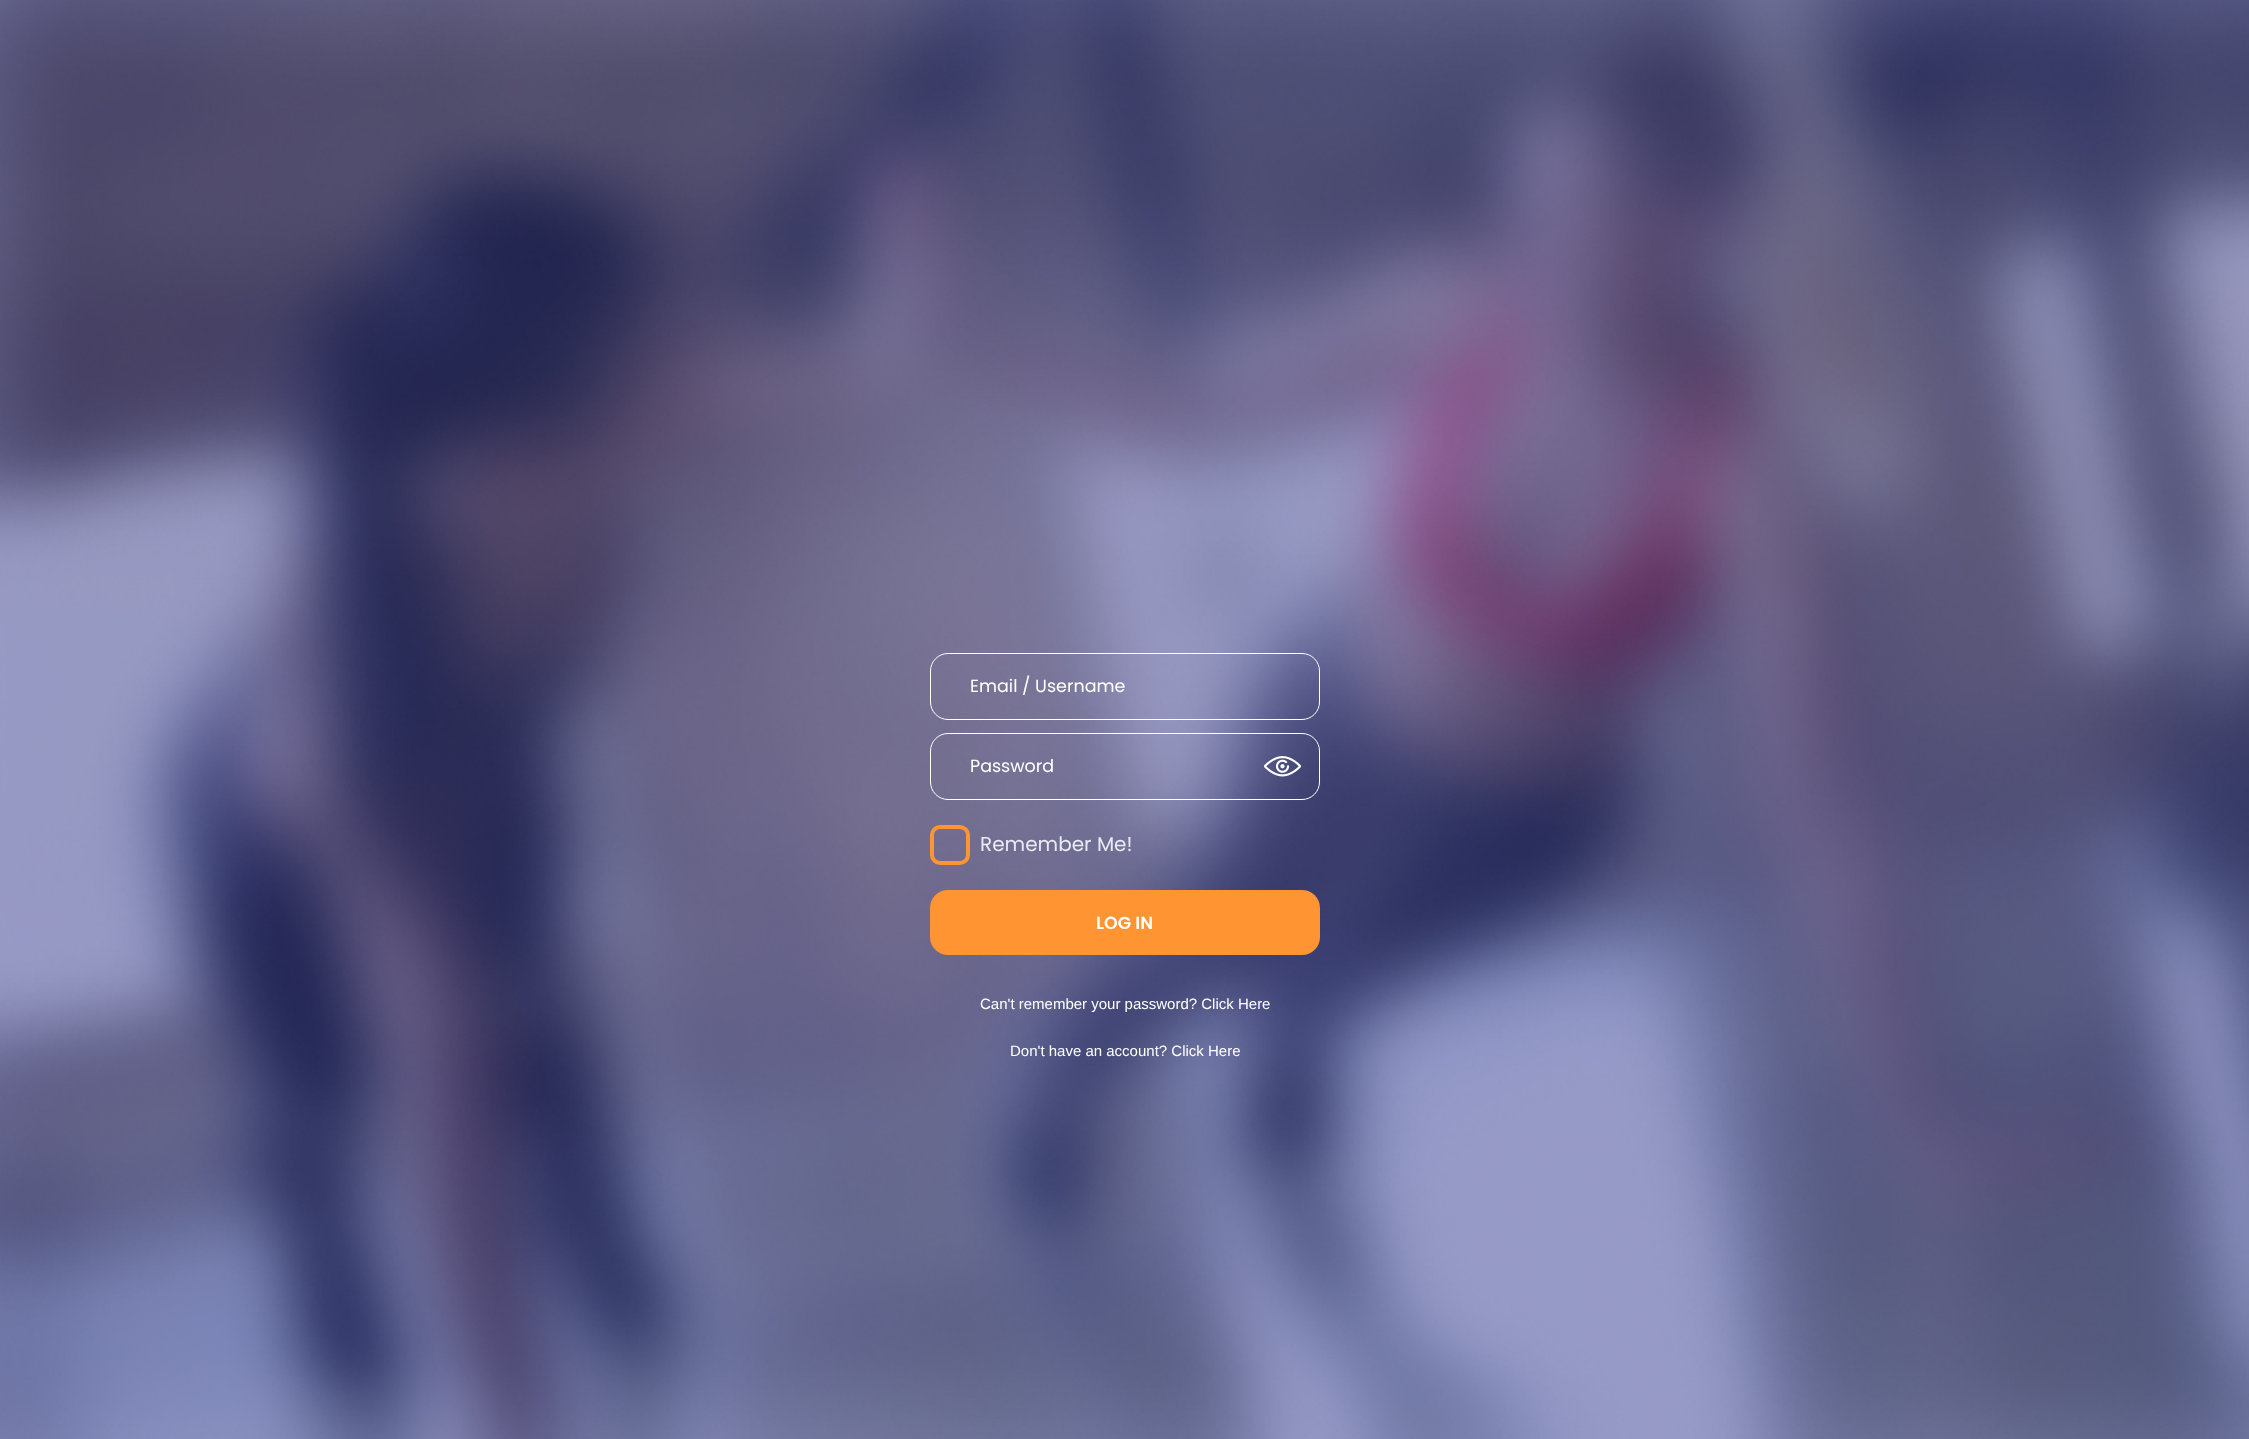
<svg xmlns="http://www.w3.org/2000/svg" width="2249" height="1439">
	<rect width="100%" height="100%" fill="#FFFFFF" />
	<image x="0" y="0" width="2249" height="1439" href="assets/img1.png" />
	<rect x="930.5" y="653.5" width="389" height="66" rx="17.5" fill="none" stroke="#FFFFFF" />
	<text x="970" y="692" font-family="Poppins" font-size="17.5" fill="#FFFFFF">Email / Username</text>
	<rect x="930.5" y="733.5" width="389" height="66" rx="17.5" fill="none" stroke="#FFFFFF" />
	<text x="970" y="772" font-family="Poppins" font-size="17.5" fill="#FFFFFF">Password</text>
	<image x="1264" y="756" width="37" height="21" href="assets/img2.png" />
	<rect x="932" y="827" width="36" height="36" rx="8" fill="none" stroke="#FF9432" stroke-width="4" />
	<text x="980" y="851" font-family="Poppins" font-size="20" fill="#E8EAF6">Remember Me!</text>
	<rect x="930" y="890" width="390" height="65" rx="18" fill="#FF9432" />
	<text x="1096" y="929" font-family="Poppins" font-size="17.5" font-weight="600" fill="#FFFFFF">LOG IN</text>
	<g font-family="Liberation Sans" font-size="15" fill="#FFFFFF">
		<text x="980" y="1009">Can't remember your password? Click Here</text>
		<text x="1010" y="1056">Don't have an account? Click Here</text>
	</g>
</svg>
